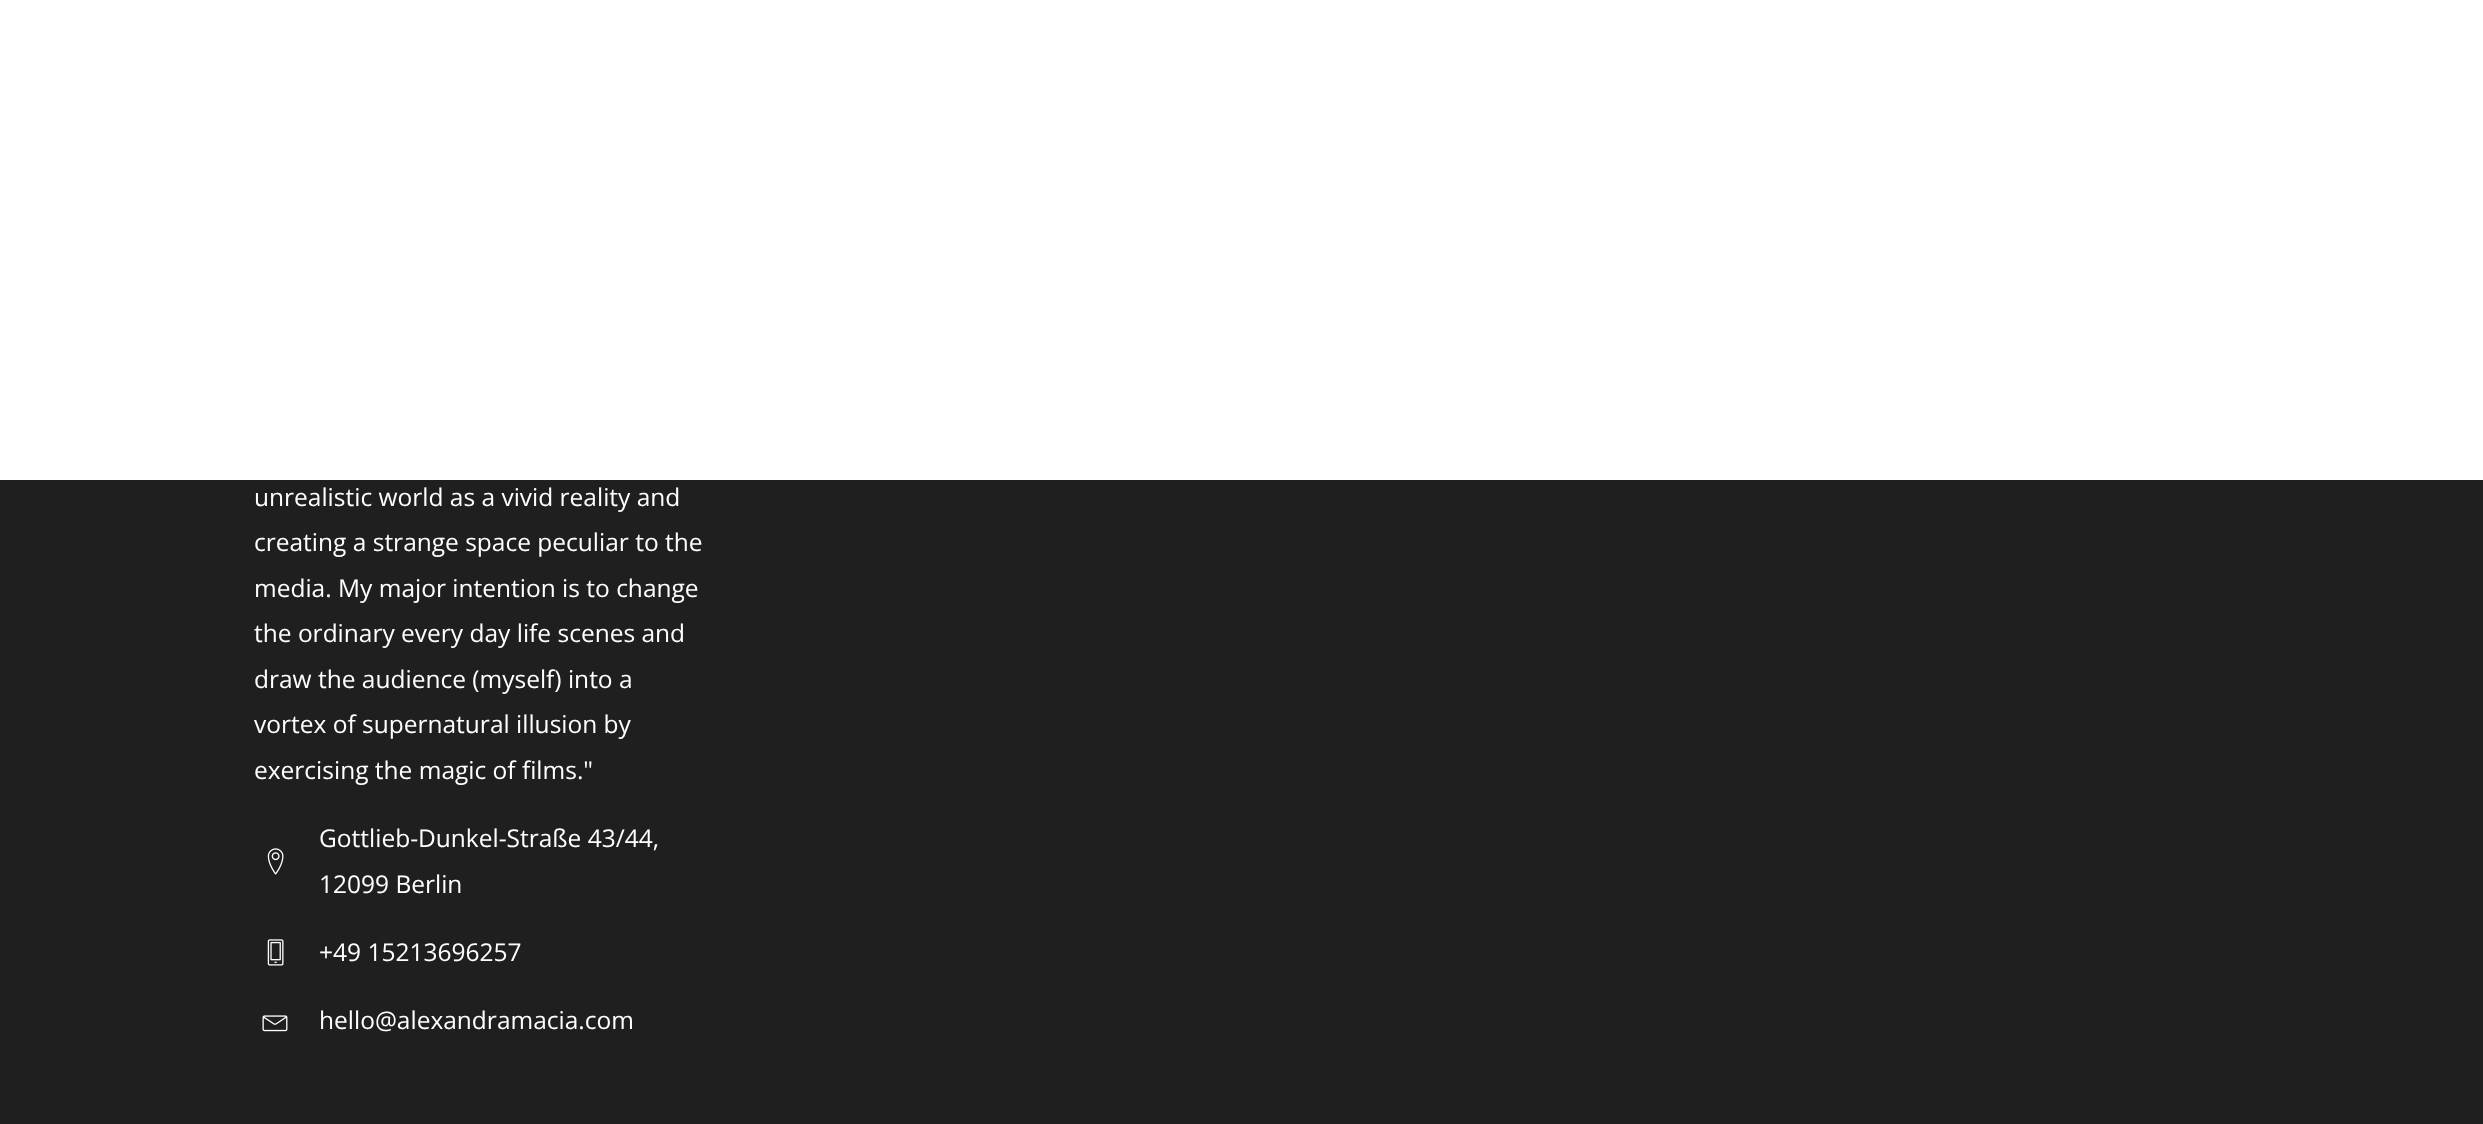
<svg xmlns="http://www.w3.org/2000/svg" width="2483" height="1124">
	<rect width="100%" height="100%" fill="#1F1F1F" />
	<rect x="0" y="0" width="2483" height="480" fill="#FFFFFF" />
	<g font-family="Open Sans" font-size="24.5" fill="#FFFFFF">
		<text x="254" y="506">unrealistic world as a vivid reality and</text>
		<text x="254" y="551">creating a strange space peculiar to the</text>
		<text x="254" y="597">media. My major intention is to change</text>
		<text x="254" y="642">the ordinary every day life scenes and</text>
		<text x="254" y="688">draw the audience (myself) into a</text>
		<text x="254" y="733">vortex of supernatural illusion by</text>
		<text x="254" y="779">exercising the magic of films."</text>
	</g>
	<image x="267" y="848" width="17" height="27" href="assets/img1.png" />
	<g font-family="Open Sans" font-size="24.5" fill="#FFFFFF">
		<text x="319" y="847">Gottlieb-Dunkel-Straße 43/44,</text>
		<text x="319" y="893">12099 Berlin</text>
	</g>
	<image x="267" y="939" width="17" height="27" href="assets/img2.png" />
	<text x="319" y="961" font-family="Open Sans" font-size="24.5" fill="#FFFFFF">+49 15213696257</text>
	<image x="262" y="1015" width="26" height="17" href="assets/img3.png" />
	<text x="319" y="1029" font-family="Open Sans" font-size="24.5" fill="#FFFFFF">hello@alexandramacia.com</text>
</svg>
